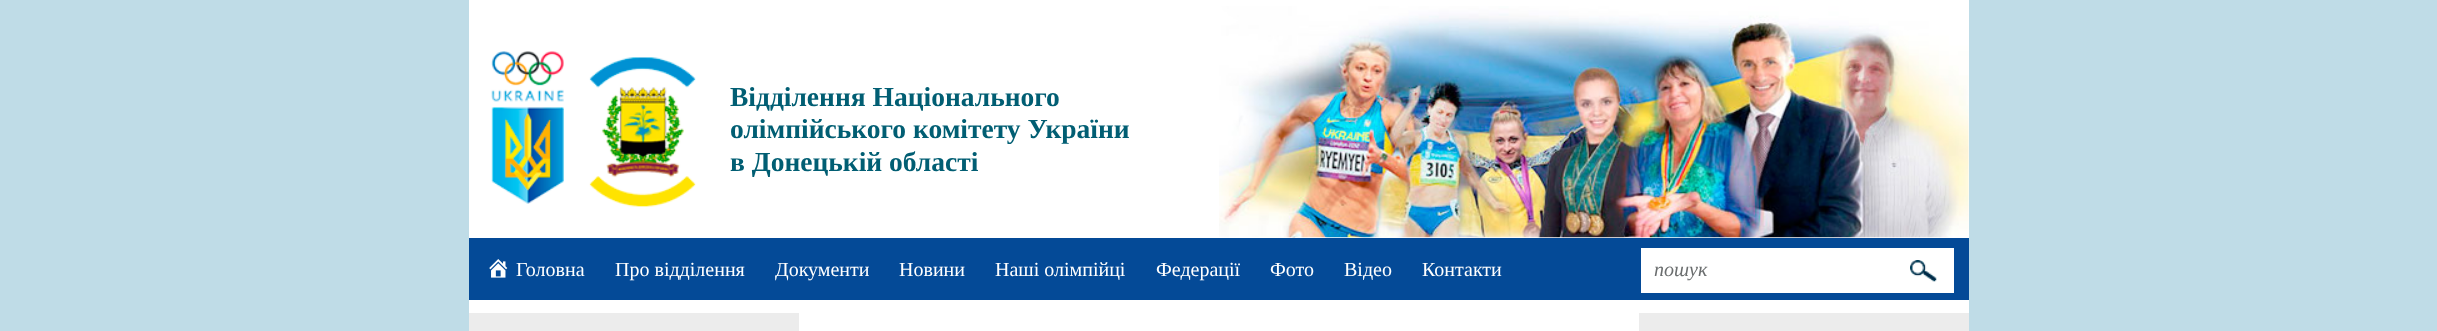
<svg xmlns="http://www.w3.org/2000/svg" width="2437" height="331">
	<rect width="100%" height="100%" fill="#BFDCE7" />
	<rect x="469" y="0" width="1500" height="331" fill="#FFFFFF" />
	<image x="491" y="51" width="205" height="156" href="assets/img1.png" />
	<g font-family="Liberation Serif" font-size="27.5" font-weight="700" fill="#015E73">
		<text x="730" y="106">Відділення Національного</text>
		<text x="730" y="138">олімпійського комітету України</text>
		<text x="730" y="171">в Донецькій області</text>
	</g>
	<image x="1219" y="6" width="750" height="232" href="assets/img2.png" />
	<rect x="469" y="238" width="1500" height="62" fill="#044A97" />
	<image x="489" y="259" width="19" height="19" href="assets/img3.png" />
	<g font-family="Liberation Serif" font-size="20" fill="#FFFFFF">
		<text x="516" y="276">Головна</text>
		<text x="615" y="276">Про відділення</text>
		<text x="775" y="276">Документи</text>
		<text x="899" y="276">Новини</text>
		<text x="995" y="276">Наші олімпійці</text>
		<text x="1156" y="276">Федерації</text>
		<text x="1270" y="276">Фото</text>
		<text x="1344" y="276">Відео</text>
		<text x="1422" y="276">Контакти</text>
	</g>
	<rect x="1641" y="248" width="313" height="45" fill="#FFFFFF" />
	<text x="1654" y="276" font-family="Liberation Serif" font-size="20" font-style="italic" fill="#6A6D6E">пошук</text>
	<image x="1910" y="260" width="27" height="22" href="assets/img4.png" />
	<rect x="469" y="313" width="330" height="18" fill="#ECECEC" />
	<rect x="1639" y="313" width="330" height="18" fill="#ECECEC" />
</svg>
